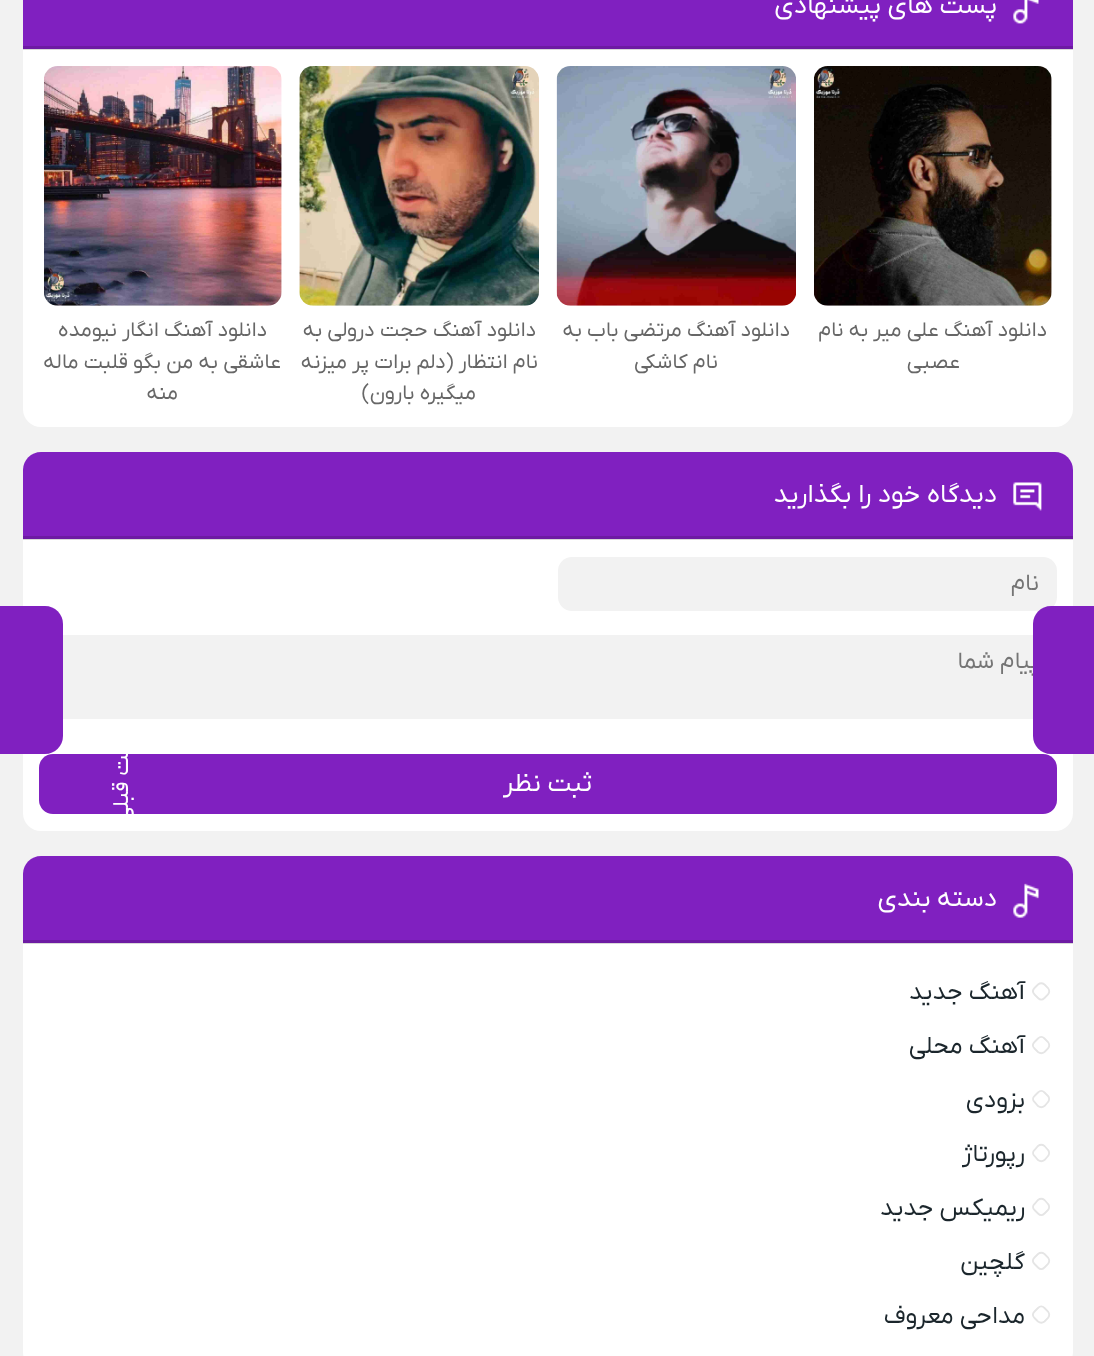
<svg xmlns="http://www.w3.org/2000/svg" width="1094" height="1356">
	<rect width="100%" height="100%" fill="#F2F2F2" />
	<rect x="23" y="-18" width="1050" height="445" rx="18" fill="#FFFFFF" />
	<rect x="23" y="0" width="1050" height="49" fill="#8020C0" />
	<rect x="23" y="46" width="1050" height="4" fill="#000000" fill-opacity="0.15" />
	<image x="1013" y="0" width="26" height="24" href="assets/img1.png" />
	<text x="997" y="13" font-family="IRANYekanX" font-size="26.25" direction="rtl" fill="#FFFFFF">پست های پیشنهادی</text>
	<image x="814" y="66" width="238" height="240" href="assets/img2.png" />
	<g font-family="IRANYekanX" font-size="21" direction="rtl" fill="#676767">
		<text x="1047" y="336">دانلود آهنگ علی میر به نام</text>
		<text x="960" y="368">عصبی</text>
	</g>
	<image x="556" y="66" width="240" height="240" href="assets/img3.png" />
	<g font-family="IRANYekanX" font-size="21" direction="rtl" fill="#676767">
		<text x="790" y="336">دانلود آهنگ مرتضی باب به</text>
		<text x="718" y="368">نام کاشکی</text>
	</g>
	<image x="299" y="66" width="240" height="240" href="assets/img4.png" />
	<g font-family="IRANYekanX" font-size="21" direction="rtl" fill="#676767">
		<text x="536" y="336">دانلود آهنگ حجت درولی به</text>
		<text x="538" y="368">نام انتظار (دلم برات پر میزنه</text>
		<text x="476" y="399">میگیره بارون)</text>
	</g>
	<image x="44" y="66" width="238" height="240" href="assets/img5.png" />
	<g font-family="IRANYekanX" font-size="21" direction="rtl" fill="#676767">
		<text x="267" y="336">دانلود آهنگ انگار نیومده</text>
		<text x="281" y="368">عاشقی به من بگو قلبت ماله</text>
		<text x="178" y="399">منه</text>
	</g>
	<rect x="23" y="452" width="1050" height="379" rx="18" fill="#FFFFFF" />
	<rect x="558" y="557" width="499" height="54" rx="14" fill="#F2F2F2" />
	<rect x="63" y="635" width="970" height="84" fill="#F2F2F2" />
	<text x="1039" y="668" font-family="IRANYekanX" font-size="23.5" direction="rtl" fill="#757575">پیام شما</text>
	<path d="M1051 606H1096V754H1051C1041 754 1033 746 1033 736V624C1033 614 1041 606 1051 606Z" fill="#8020C0" />
	<text x="1177" y="730" transform="rotate(-90 1177 730)" font-family="IRANYekanX" font-size="22.75" direction="rtl" fill="#FFFFFF">پست بعدی</text>
	<path d="M41 452H1055C1065 452 1073 460 1073 470V539H23V470C23 460 31 452 41 452Z" fill="#8020C0" />
	<rect x="23" y="536" width="1050" height="4" fill="#000000" fill-opacity="0.15" />
	<image x="1013" y="482" width="29" height="29" href="assets/img6.png" />
	<text x="997" y="502" font-family="IRANYekanX" font-size="26.25" direction="rtl" fill="#FFFFFF">دیدگاه خود را بگذارید</text>
	<text x="1039" y="590" font-family="IRANYekanX" font-size="23.5" direction="rtl" fill="#757575">نام</text>
	<rect x="39" y="754" width="1018" height="60" rx="14" fill="#8020C0" />
	<text x="592" y="791" font-family="IRANYekanX" font-size="26.25" direction="rtl" fill="#FFFFFF">ثبت نظر</text>
	<path d="M0 606H45C55 606 63 614 63 624V736C63 746 55 754 45 754H0Z" fill="#8020C0" />
	<text x="128" y="726" transform="rotate(-90 128 726)" font-family="IRANYekanX" font-size="22.75" direction="rtl" fill="#FFFFFF">پست قبلی</text>
	<rect x="23" y="856" width="1050" height="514" rx="18" fill="#FFFFFF" />
	<path d="M41 856H1055C1065 856 1073 864 1073 874V943H23V874C23 864 31 856 41 856Z" fill="#8020C0" />
	<rect x="23" y="940" width="1050" height="4" fill="#000000" fill-opacity="0.15" />
	<image x="1013" y="883" width="26" height="35" href="assets/img7.png" />
	<text x="997" y="906" font-family="IRANYekanX" font-size="26.25" direction="rtl" fill="#FFFFFF">دسته بندی</text>
	<path d="M1044.5 984.5L1048 988C1049.5 990 1049.5 992.5 1048 994.5L1044.5 998C1042.5 1000 1040 1000 1038 998L1034.5 994.5C1032.5 992.5 1032.5 990 1034.5 988L1038 984.5C1040 983 1042.5 983 1044.5 984.5Z" fill="none" stroke="#E5E5E5" stroke-width="1.8" />
	<text x="1025" y="999" font-family="IRANYekanX" font-size="24.5" direction="rtl" fill="#1B262C">آهنگ جدید</text>
	<path d="M1044.5 1038.5L1048 1042C1049.5 1044 1049.5 1046.5 1048 1048.5L1044.5 1052C1042.5 1053.5 1040 1053.5 1038 1052L1034.5 1048.5C1032.5 1046.5 1032.5 1044 1034.5 1042L1038 1038.5C1040 1036.5 1042.5 1036.5 1044.5 1038.5Z" fill="none" stroke="#E5E5E5" stroke-width="1.8" />
	<text x="1025" y="1053" font-family="IRANYekanX" font-size="24.5" direction="rtl" fill="#1B262C">آهنگ محلی</text>
	<path d="M1044.5 1092.5L1048 1096C1049.5 1097.5 1049.5 1100.5 1048 1102L1044.5 1106C1042.5 1107.5 1040 1107.5 1038 1106L1034.5 1102C1032.5 1100.5 1032.5 1097.5 1034.5 1096L1038 1092.5C1040 1090.5 1042.5 1090.5 1044.5 1092.5Z" fill="none" stroke="#E5E5E5" stroke-width="1.8" />
	<text x="1025" y="1107" font-family="IRANYekanX" font-size="24.5" direction="rtl" fill="#1B262C">بزودی</text>
	<path d="M1044.5 1146L1048 1150C1049.5 1151.5 1049.5 1154.5 1048 1156L1044.5 1160C1042.5 1161.5 1040 1161.5 1038 1160L1034.5 1156C1032.5 1154.5 1032.5 1151.5 1034.5 1150L1038 1146C1040 1144.5 1042.5 1144.5 1044.5 1146Z" fill="none" stroke="#E5E5E5" stroke-width="1.8" />
	<text x="1025" y="1161" font-family="IRANYekanX" font-size="24.5" direction="rtl" fill="#1B262C">رپورتاژ</text>
	<path d="M1044.5 1200L1048 1204C1049.5 1205.5 1049.5 1208.5 1048 1210L1044.5 1213.5C1042.5 1215.5 1040 1215.5 1038 1213.5L1034.5 1210C1032.5 1208.5 1032.5 1205.5 1034.5 1204L1038 1200C1040 1198.5 1042.5 1198.5 1044.5 1200Z" fill="none" stroke="#E5E5E5" stroke-width="1.8" />
	<text x="1025" y="1215" font-family="IRANYekanX" font-size="24.5" direction="rtl" fill="#1B262C">ریمیکس جدید</text>
	<path d="M1044.5 1254L1048 1257.5C1049.5 1259.5 1049.5 1262 1048 1264L1044.5 1267.5C1042.5 1269.5 1040 1269.5 1038 1267.5L1034.5 1264C1032.5 1262 1032.5 1259.5 1034.5 1257.5L1038 1254C1040 1252.5 1042.5 1252.5 1044.5 1254Z" fill="none" stroke="#E5E5E5" stroke-width="1.8" />
	<text x="1025" y="1269" font-family="IRANYekanX" font-size="24.5" direction="rtl" fill="#1B262C">گلچین</text>
	<path d="M1044.5 1308L1048 1311.5C1049.5 1313.5 1049.5 1316 1048 1318L1044.5 1321.5C1042.5 1323 1040 1323 1038 1321.5L1034.5 1318C1032.5 1316 1032.5 1313.5 1034.5 1311.5L1038 1308C1040 1306 1042.5 1306 1044.5 1308Z" fill="none" stroke="#E5E5E5" stroke-width="1.8" />
	<text x="1025" y="1323" font-family="IRANYekanX" font-size="24.5" direction="rtl" fill="#1B262C">مداحی معروف</text>
</svg>
